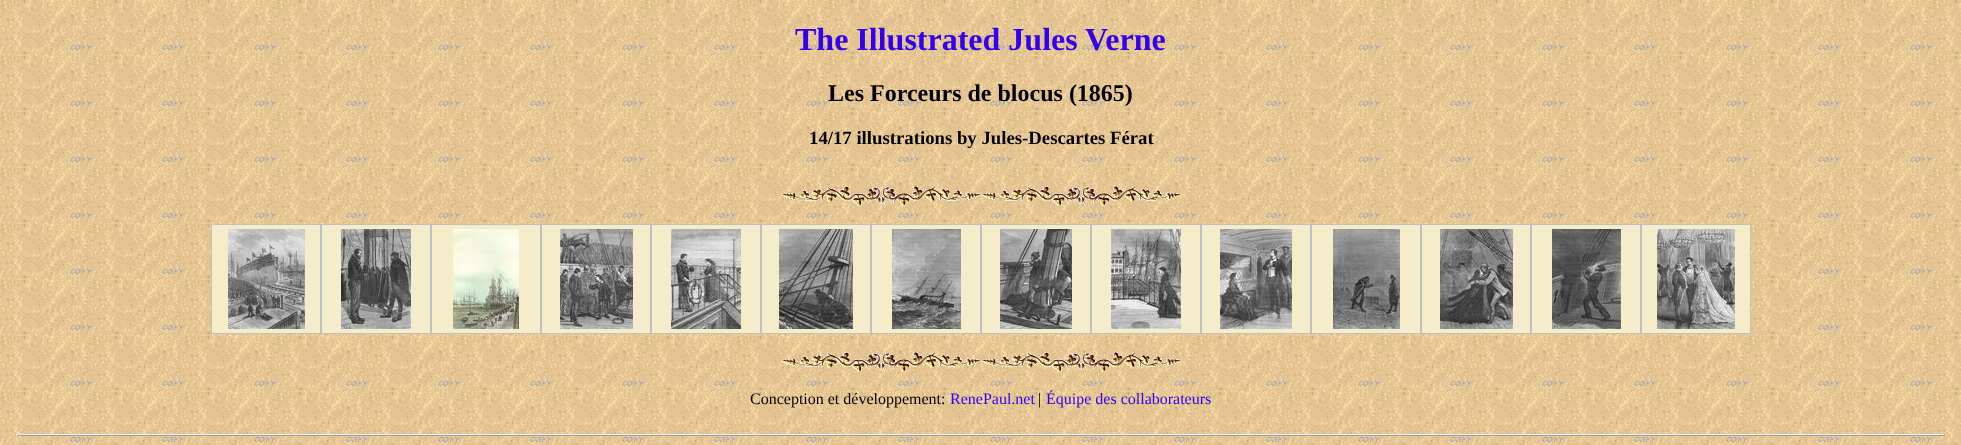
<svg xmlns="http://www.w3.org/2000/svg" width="1961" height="445">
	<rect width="100%" height="100%" fill="#FFFFFF" />
	<image x="0" y="0" width="1961" height="445" href="assets/img1.png" />
	<text x="795" y="50" font-family="Liberation Serif" font-size="32" font-weight="700" fill="#3300EE">The Illustrated Jules Verne</text>
	<text x="828" y="101" font-family="Liberation Serif" font-size="24" font-weight="700" fill="#000000">Les Forceurs de blocus (1865)</text>
	<text x="809" y="144" font-family="Liberation Serif" font-size="18.75" font-weight="700" fill="#000000">14/17 illustrations by Jules-Descartes Férat</text>
	<image x="781" y="186" width="400" height="20" href="assets/img2.png" />
	<rect x="211.5" y="224.5" width="109" height="109" fill="#F5EDC9" stroke="#C0C0C0" />
	<rect x="321.5" y="224.5" width="109" height="109" fill="#F5EDC9" stroke="#C0C0C0" />
	<rect x="431.5" y="224.5" width="109" height="109" fill="#F5EDC9" stroke="#C0C0C0" />
	<rect x="541.5" y="224.5" width="109" height="109" fill="#F5EDC9" stroke="#C0C0C0" />
	<rect x="651.5" y="224.5" width="109" height="109" fill="#F5EDC9" stroke="#C0C0C0" />
	<rect x="761.5" y="224.5" width="109" height="109" fill="#F5EDC9" stroke="#C0C0C0" />
	<rect x="871.5" y="224.5" width="109" height="109" fill="#F5EDC9" stroke="#C0C0C0" />
	<rect x="981.5" y="224.5" width="109" height="109" fill="#F5EDC9" stroke="#C0C0C0" />
	<rect x="1091.5" y="224.5" width="109" height="109" fill="#F5EDC9" stroke="#C0C0C0" />
	<rect x="1201.5" y="224.5" width="109" height="109" fill="#F5EDC9" stroke="#C0C0C0" />
	<rect x="1311.5" y="224.5" width="109" height="109" fill="#F5EDC9" stroke="#C0C0C0" />
	<rect x="1421.5" y="224.5" width="109" height="109" fill="#F5EDC9" stroke="#C0C0C0" />
	<rect x="1531.5" y="224.5" width="109" height="109" fill="#F5EDC9" stroke="#C0C0C0" />
	<rect x="1641.5" y="224.5" width="109" height="109" fill="#F5EDC9" stroke="#C0C0C0" />
	<image x="227" y="229" width="80" height="100" href="assets/img3.png" />
	<image x="339" y="229" width="74" height="100" href="assets/img4.png" />
	<image x="452" y="229" width="69" height="100" href="assets/img5.png" />
	<image x="559" y="229" width="76" height="100" href="assets/img6.png" />
	<image x="669" y="229" width="74" height="100" href="assets/img7.png" />
	<image x="777" y="229" width="78" height="100" href="assets/img8.png" />
	<image x="891" y="229" width="72" height="100" href="assets/img9.png" />
	<image x="999" y="229" width="74" height="100" href="assets/img10.png" />
	<image x="1109" y="229" width="74" height="100" href="assets/img11.png" />
	<image x="1219" y="229" width="74" height="100" href="assets/img12.png" />
	<image x="1332" y="229" width="69" height="100" href="assets/img13.png" />
	<image x="1439" y="229" width="76" height="100" href="assets/img14.png" />
	<image x="1551" y="229" width="72" height="100" href="assets/img15.png" />
	<image x="1655" y="229" width="81" height="100" href="assets/img16.png" />
	<image x="781" y="352" width="400" height="20" href="assets/img17.png" />
	<text x="750" y="404" font-family="Liberation Serif" font-size="16" fill="#000000">Conception et développement:</text>
	<text x="950" y="404" font-family="Liberation Serif" font-size="16" fill="#3300EE">RenePaul.net</text>
	<text x="1038" y="404" font-family="Liberation Serif" font-size="16" fill="#000000">|</text>
	<text x="1046" y="404" font-family="Liberation Serif" font-size="16" fill="#3300EE">Équipe des collaborateurs</text>
	<rect x="16" y="434" width="1929" height="1" fill="#EEEEEE" />
	<rect x="1944" y="434" width="1" height="2" fill="#9F9F9F" />
	<rect x="16" y="435" width="1929" height="1" fill="#9F9F9F" />
	<rect x="16" y="434" width="1" height="2" fill="#EEEEEE" />
</svg>
